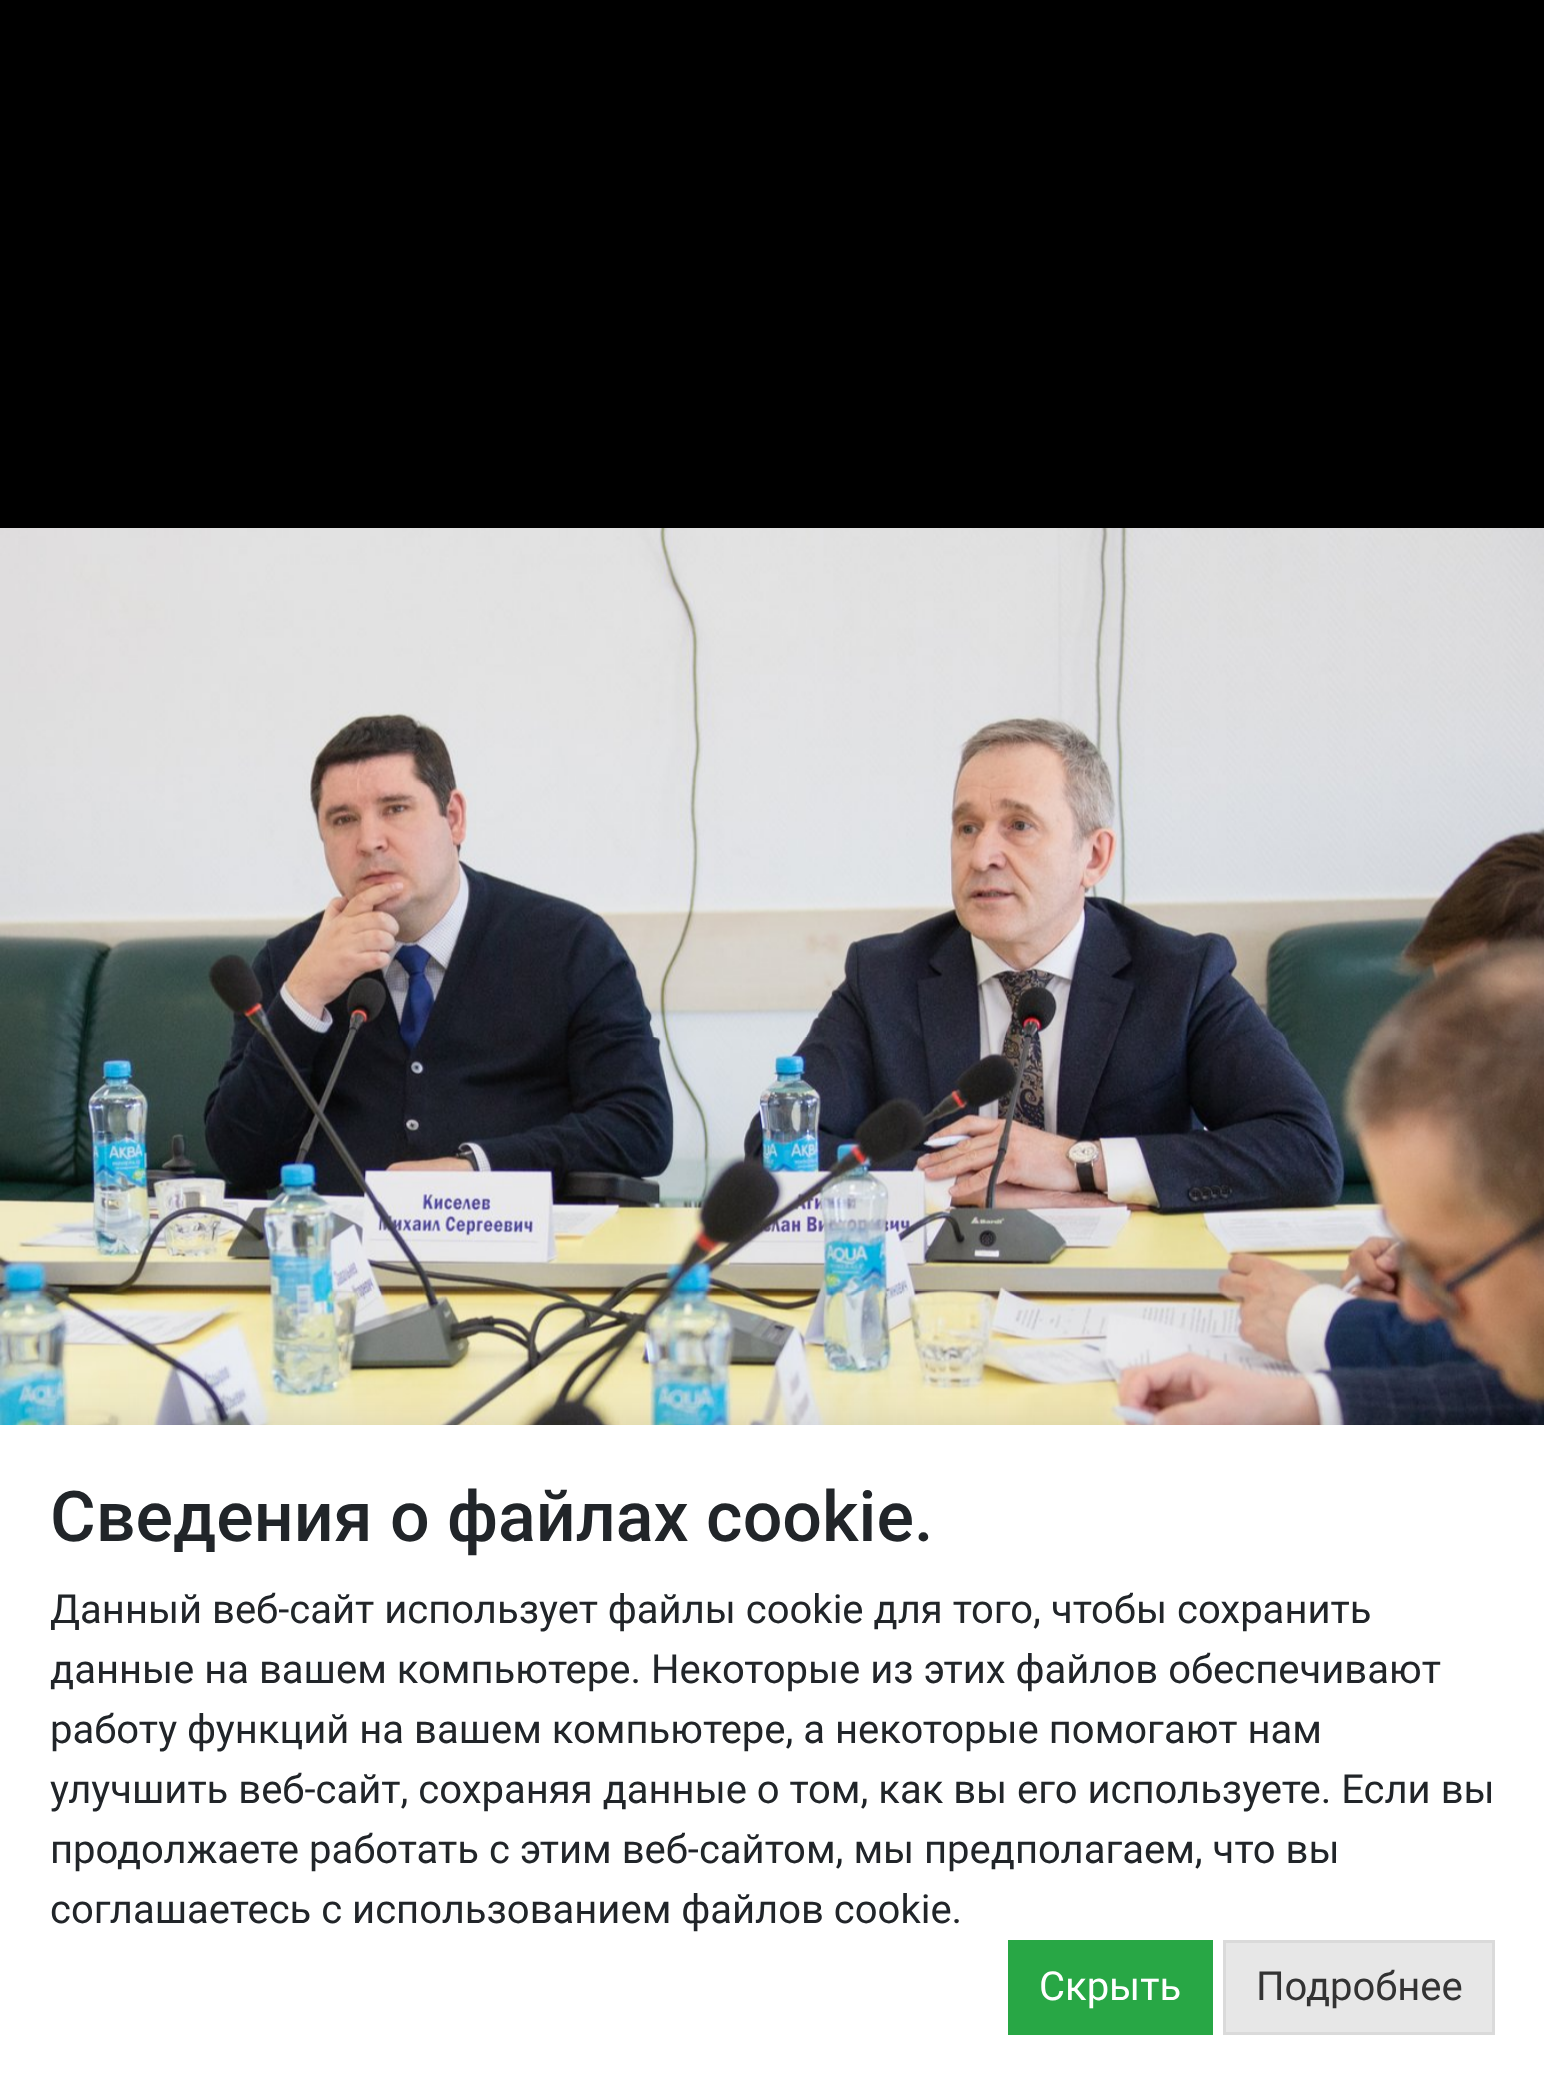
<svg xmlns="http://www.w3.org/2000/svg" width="1544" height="2085">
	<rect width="100%" height="100%" fill="#000000" />
	<image x="0" y="528" width="1544" height="897" href="assets/img1.png" />
	<rect x="0" y="1428" width="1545" height="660" fill="#000000" fill-opacity="0.12" filter="blur(22.5px)" />
	<rect x="0" y="1425" width="1544" height="660" fill="#FFFFFF" />
	<text x="50" y="1541" font-family="Roboto" font-size="70" font-weight="500" fill="#212529">Сведения о файлах cookie.</text>
	<g font-family="Roboto" font-size="40" fill="#212529">
		<text x="50" y="1623">Данный веб-сайт использует файлы cookie для того, чтобы сохранить</text>
		<text x="50" y="1683">данные на вашем компьютере. Некоторые из этих файлов обеспечивают</text>
		<text x="50" y="1743">работу функций на вашем компьютере, а некоторые помогают нам</text>
		<text x="50" y="1803">улучшить веб-сайт, сохраняя данные о том, как вы его используете. Если вы</text>
		<text x="50" y="1863">продолжаете работать с этим веб-сайтом, мы предполагаем, что вы</text>
		<text x="50" y="1923">соглашаетесь с использованием файлов cookie.</text>
	</g>
	<rect x="1008" y="1940" width="205" height="95" fill="#28A745" />
	<text x="1039" y="2000" font-family="Roboto" font-size="40" fill="#FFFFFF">Скрыть</text>
	<rect x="1224.5" y="1941.5" width="269" height="92" fill="#E7E7E7" stroke="#DADADA" stroke-width="3" />
	<text x="1256" y="2000" font-family="Roboto" font-size="40" fill="#333333">Подробнее</text>
</svg>
